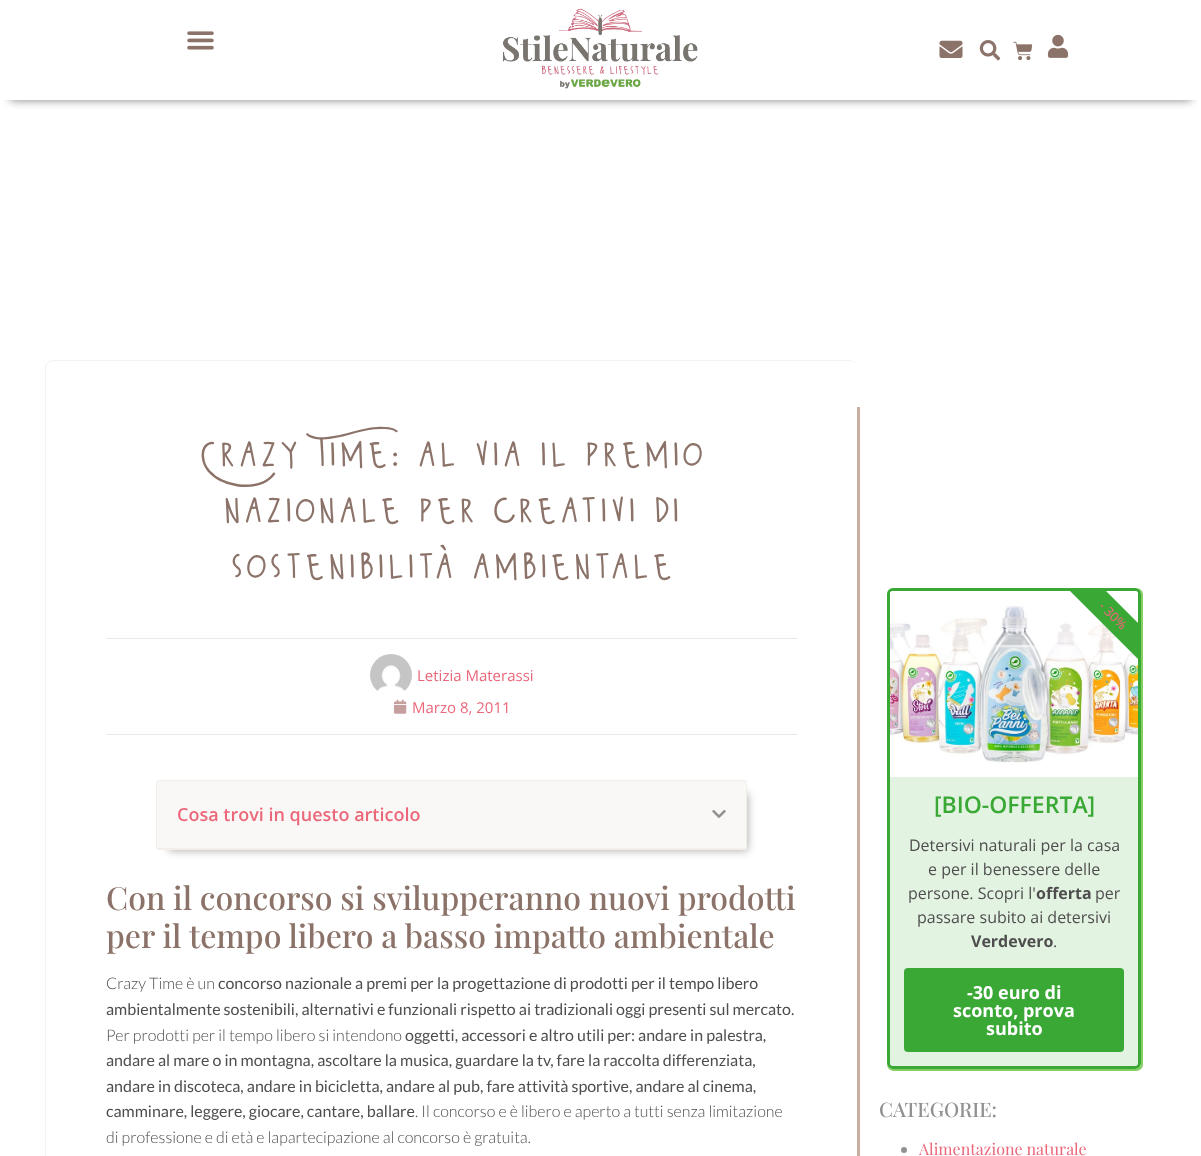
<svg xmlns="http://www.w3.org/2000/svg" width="1201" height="1156">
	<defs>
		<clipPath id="clip1"><rect x="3" y="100" width="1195" height="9" /></clipPath>
		<clipPath id="clip2"><rect x="157" y="781" width="589" height="68" rx="2" /></clipPath>
	</defs>
	<rect width="100%" height="100%" fill="#FFFFFF" />
	<g clip-path="url(#clip1)">
		<rect x="10" y="20" width="1181" height="80" fill="#000000" fill-opacity="0.5" filter="blur(5px)" />
	</g>
	<image x="187" y="31" width="27" height="19" href="assets/img1.png" />
	<image x="502" y="8" width="196" height="81" href="assets/img2.png" />
	<image x="939" y="40" width="24" height="18" href="assets/img3.png" />
	<image x="979" y="40" width="22" height="21" href="assets/img4.png" />
	<image x="1013" y="41" width="20" height="20" href="assets/img5.png" />
	<image x="1047" y="34" width="22" height="24" href="assets/img6.png" />
	<path d="M92 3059V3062H860V407H857V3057C857 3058 856 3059 855 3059Z" fill="#C8AFA0" />
	<path d="M53 360H849C853 360 857 364 857 368V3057C857 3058 856 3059 855 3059H47C46 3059 45 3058 45 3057V368C45 364 49 360 53 360ZM53 361H849C853 361 857 364 857 368V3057C857 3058 856 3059 855 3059H47C46 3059 46 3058 46 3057V368C46 364 49 361 53 361Z" fill="#F5F1EE" fill-rule="evenodd" />
	<g font-family="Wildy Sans" font-size="51" fill="#8C7369">
		<text x="199" y="466">Crazy Time: al via il premio</text>
		<text x="222" y="522">nazionale per creativi di</text>
		<text x="229" y="578">sostenibilità ambientale</text>
	</g>
	<rect x="106" y="638" width="691" height="1" fill="#E9E9E9" />
	<rect x="106" y="734" width="691" height="1" fill="#E9E9E9" />
	<image x="370" y="654" width="42" height="37" href="assets/img7.png" />
	<text x="417" y="681" font-family="Open Sans" font-size="15" fill="#EB677A">Letizia Materassi</text>
	<image x="394" y="699" width="13" height="15" href="assets/img8.png" />
	<text x="412" y="713" font-family="Open Sans" font-size="15" fill="#EB677A">Marzo 8, 2011</text>
	<rect x="169" y="793" width="579" height="58" fill="#000000" fill-opacity="0.3" filter="blur(4px)" />
	<rect x="156" y="780" width="591" height="70" rx="3" fill="#FAF8F6" />
	<rect x="156.5" y="780.5" width="590" height="69" rx="2.5" fill="none" stroke="#C8AFA0" stroke-opacity="0.14" />
	<g clip-path="url(#clip2)">
		<rect x="157" y="848" width="589" height="1" fill="#F3EEEA" />
	</g>
	<text x="177" y="821" font-family="Open Sans" font-size="18" font-weight="600" fill="#EB677A">Cosa trovi in questo articolo</text>
	<image x="712" y="809" width="14" height="9" href="assets/img9.png" />
	<g font-family="Playfair Display" font-size="32" font-weight="500" fill="#8C7369">
		<text x="106" y="910">Con il concorso si svilupperanno nuovi prodotti</text>
		<text x="106" y="948">per il tempo libero a basso impatto ambientale</text>
	</g>
	<text x="106" y="989" font-family="Lato" font-size="16" font-weight="300" fill="#4F4E4E">Crazy Time è un</text>
	<g font-family="Lato" font-size="16" fill="#4F4E4E">
		<text x="218" y="989">concorso nazionale a premi per la progettazione di prodotti per il tempo libero</text>
		<text x="106" y="1015">ambientalmente sostenibili, alternativi e funzionali rispetto ai tradizionali oggi presenti sul mercato.</text>
	</g>
	<text x="106" y="1041" font-family="Lato" font-size="16" font-weight="300" fill="#4F4E4E">Per prodotti per il tempo libero si intendono</text>
	<g font-family="Lato" font-size="16" fill="#4F4E4E">
		<text x="405" y="1041">oggetti, accessori e altro utili per: andare in palestra,</text>
		<text x="106" y="1066">andare al mare o in montagna, ascoltare la musica, guardare la tv, fare la raccolta differenziata,</text>
		<text x="106" y="1092">andare in discoteca, andare in bicicletta, andare al pub, fare attività sportive, andare al cinema,</text>
		<text x="106" y="1117">camminare, leggere, giocare, cantare, ballare</text>
	</g>
	<g font-family="Lato" font-size="16" font-weight="300" fill="#4F4E4E">
		<text x="415" y="1117">. Il concorso e è libero e aperto a tutti senza limitazione</text>
		<text x="106" y="1143">di professione e di età e lapartecipazione al concorso è gratuita.</text>
	</g>
	<path d="M1136 588H1135C1138 588 1141 591 1141 594V1063C1141 1066 1138 1069 1135 1069H893C890 1069 887 1066 887 1063V1064C887 1068 890 1071 894 1071H1136C1140 1071 1143 1068 1143 1064V595C1143 591 1140 588 1136 588Z" fill="#85CE61" />
	<rect x="888.5" y="589.5" width="251" height="478" rx="4.5" fill="none" stroke="#39A835" stroke-width="3" />
	<image x="890" y="591" width="248" height="172" href="assets/img10.png" />
	<path d="M1138 659L1070 591H1106L1138 623Z" fill="#39A835" />
	<text x="1098" y="607" transform="rotate(45 1098 607)" font-family="Open Sans" font-size="13" font-weight="500" fill="#EB677A">- 30%</text>
	<path d="M890 777H1138V1063C1138 1064.5 1136.5 1066 1135 1066H893C891.5 1066 890 1064.5 890 1063Z" fill="#39A835" fill-opacity="0.14" />
	<text x="934" y="813" font-family="Open Sans" font-size="23" font-weight="600" fill="#39A835">[BIO-OFFERTA]</text>
	<g font-family="Open Sans" font-size="16" fill="#4F4E4E">
		<text x="909" y="851">Detersivi naturali per la casa</text>
		<text x="928" y="875">e per il benessere delle</text>
		<text x="908" y="899">persone. Scopri l'</text>
	</g>
	<text x="1036" y="899" font-family="Open Sans" font-size="16" font-weight="700" fill="#4F4E4E">offerta</text>
	<g font-family="Open Sans" font-size="16" fill="#4F4E4E">
		<text x="1095" y="899">per</text>
		<text x="917" y="923">passare subito ai detersivi</text>
	</g>
	<text x="971" y="947" font-family="Open Sans" font-size="16" font-weight="700" fill="#4F4E4E">Verdevero</text>
	<text x="1053" y="947" font-family="Open Sans" font-size="16" fill="#4F4E4E">.</text>
	<rect x="904" y="968" width="220" height="84" rx="4" fill="#39A835" />
	<g font-family="Open Sans" font-size="18" font-weight="700" fill="#FFFFFF">
		<text x="967" y="999">-30 euro di</text>
		<text x="953" y="1017">sconto, prova</text>
		<text x="986" y="1035">subito</text>
	</g>
	<text x="879" y="1117" font-family="Playfair Display" font-size="20" font-weight="500" fill="#929191">CATEGORIE:</text>
	<circle cx="904" cy="1150" r="3" fill="#929191" />
	<text x="919" y="1155" font-family="Playfair Display" font-size="16" fill="#EB677A">Alimentazione naturale</text>
</svg>
